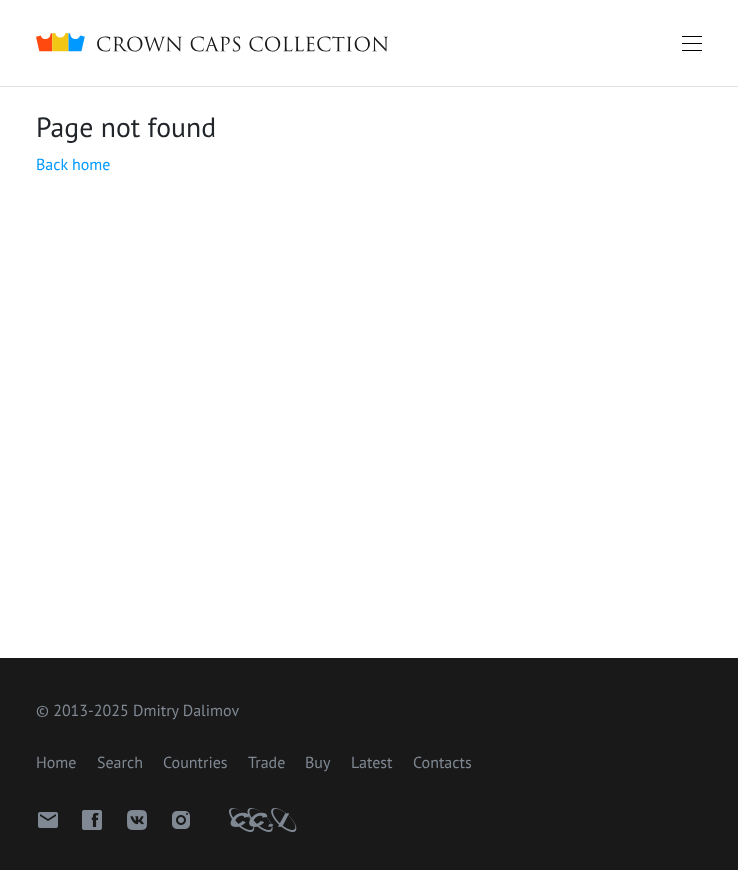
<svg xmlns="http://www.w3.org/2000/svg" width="738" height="870">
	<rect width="100%" height="100%" fill="#FFFFFF" />
	<rect x="0" y="86" width="738" height="1" fill="#DEE2E6" />
	<image x="36" y="33" width="352" height="19" href="assets/img1.png" />
	<rect x="682" y="36" width="20" height="1" fill="#000000" />
	<rect x="682" y="43" width="20" height="1" fill="#000000" />
	<rect x="682" y="50" width="20" height="1" fill="#000000" />
	<text x="36" y="137" font-family="PT Sans" font-size="27.75" fill="#212529">Page not found</text>
	<text x="36" y="170" font-family="PT Sans" font-size="16" fill="#0099FF">Back home</text>
	<rect x="0" y="658" width="738" height="212" fill="#191919" />
	<g font-family="PT Sans" font-size="16" fill="#808993">
		<text x="36" y="716">© 2013-2025 Dmitry Dalimov</text>
		<text x="36" y="768">Home</text>
		<text x="97" y="768">Search</text>
		<text x="163" y="768">Countries</text>
		<text x="248" y="768">Trade</text>
		<text x="305" y="768">Buy</text>
		<text x="351" y="768">Latest</text>
		<text x="413" y="768">Contacts</text>
	</g>
	<image x="38" y="812" width="20" height="16" href="assets/img2.png" />
	<image x="82" y="810" width="20" height="20" href="assets/img3.png" />
	<image x="127" y="810" width="20" height="20" href="assets/img4.png" />
	<image x="172" y="811" width="18" height="18" href="assets/img5.png" />
	<image x="229" y="808" width="68" height="24" href="assets/img6.png" />
</svg>
